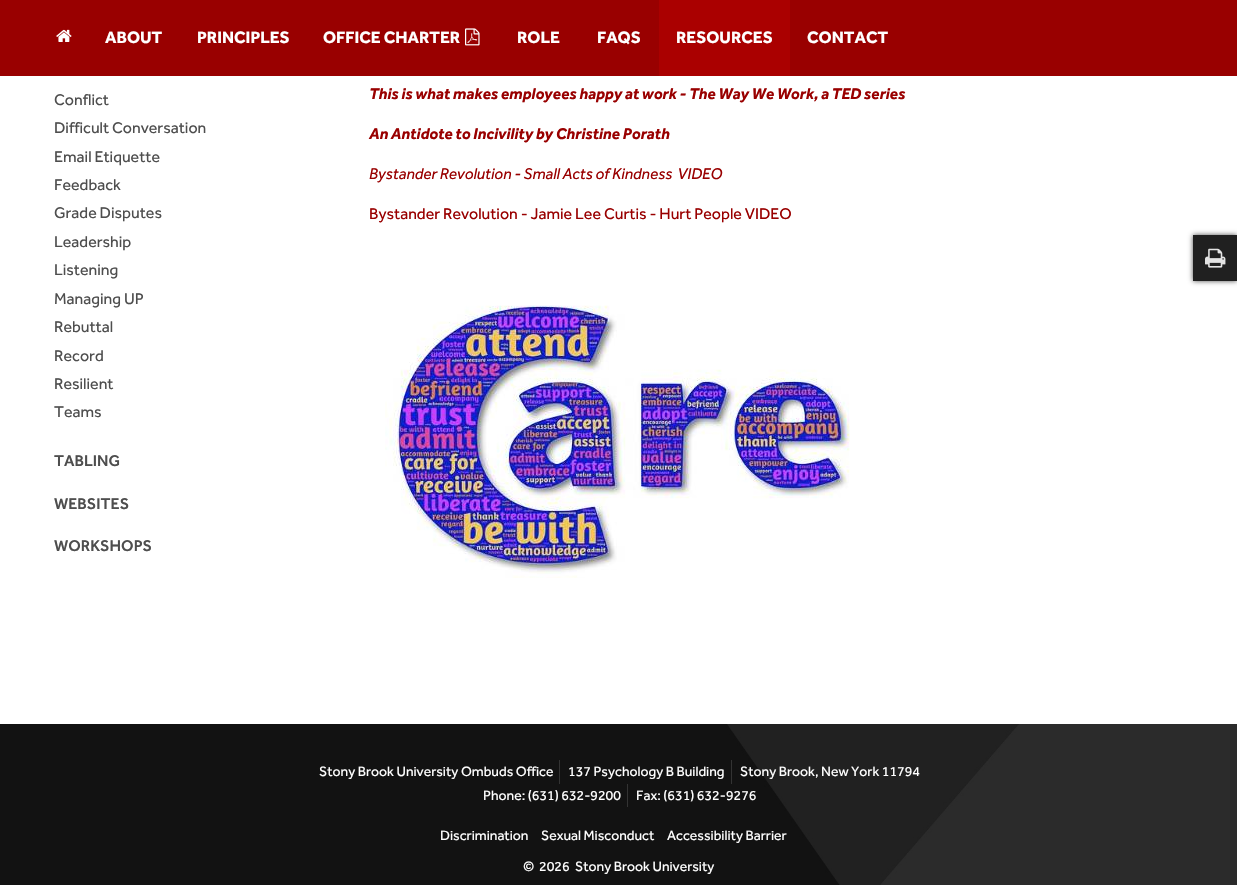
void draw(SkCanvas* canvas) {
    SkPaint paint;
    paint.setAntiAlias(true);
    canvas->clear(0xFFFFFFFF);
    paint.setColor(0xFF990000);
    canvas->drawRect(SkRect::MakeXYWH(0, 0, 1237, 76), paint);
    canvas->drawImageRect(SkImages::DeferredFromEncodedData(SkData::MakeFromFileName("img1.png")), SkRect::MakeXYWH(56, 29, 16, 13), SkSamplingOptions());
    SkFont font1(fontMgr->matchFamilyStyle("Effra", SkFontStyle::Bold()), 17);
    font1.setSubpixel(true);
    paint.setColor(0xFFFFFFFF);
    canvas->drawString("ABOUT", 105, 43, font1, paint);
    canvas->drawString("PRINCIPLES", 197, 43, font1, paint);
    canvas->drawString("OFFICE CHARTER", 323, 43, font1, paint);
    canvas->drawImageRect(SkImages::DeferredFromEncodedData(SkData::MakeFromFileName("img2.png")), SkRect::MakeXYWH(465, 28, 15, 18), SkSamplingOptions());
    canvas->drawString("ROLE", 517, 43, font1, paint);
    canvas->drawString("FAQS", 597, 43, font1, paint);
    paint.setColor(0xFFAA0000);
    canvas->drawRect(SkRect::MakeXYWH(659, 0, 131, 76), paint);
    paint.setColor(0xFFFFFFFF);
    canvas->drawString("RESOURCES", 676, 43, font1, paint);
    canvas->drawString("CONTACT", 807, 43, font1, paint);
    SkFont font2(fontMgr->matchFamilyStyle("Effra", SkFontStyle::Normal()), 16);
    font2.setSubpixel(true);
    paint.setColor(0xFF4E4E4E);
    canvas->drawString("Conflict", 54, 105, font2, paint);
    canvas->drawString("Difficult Conversation", 54, 133, font2, paint);
    canvas->drawString("Email Etiquette", 54, 162, font2, paint);
    canvas->drawString("Feedback", 54, 190, font2, paint);
    canvas->drawString("Grade Disputes", 54, 218, font2, paint);
    canvas->drawString("Leadership", 54, 247, font2, paint);
    canvas->drawString("Listening", 54, 275, font2, paint);
    canvas->drawString("Managing UP", 54, 304, font2, paint);
    canvas->drawString("Rebuttal", 54, 332, font2, paint);
    canvas->drawString("Record", 54, 361, font2, paint);
    canvas->drawString("Resilient", 54, 389, font2, paint);
    canvas->drawString("Teams", 54, 417, font2, paint);
    SkFont font3(fontMgr->matchFamilyStyle("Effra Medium", SkFontStyle(500, SkFontStyle::kNormal_Width, SkFontStyle::kUpright_Slant)), 16);
    font3.setSubpixel(true);
    canvas->drawString("TABLING", 54, 466, font3, paint);
    canvas->drawString("WEBSITES", 54, 509, font3, paint);
    canvas->drawString("WORKSHOPS", 54, 551, font3, paint);
    SkFont font4(fontMgr->matchFamilyStyle("Effra", SkFontStyle::BoldItalic()), 16);
    font4.setSubpixel(true);
    paint.setColor(0xFF990000);
    canvas->drawString("This is what makes employees happy at work - The Way We Work, a TED series", 369, 99, font4, paint);
    canvas->drawString("An Antidote to Incivility by Christine Porath", 369, 139, font4, paint);
    SkFont font5(fontMgr->matchFamilyStyle("Effra", SkFontStyle::Italic()), 16);
    font5.setSubpixel(true);
    canvas->drawString("Bystander Revolution - Small Acts of Kindness  VIDEO", 369, 179, font5, paint);
    canvas->drawString("Bystander Revolution - Jamie Lee Curtis - Hurt People VIDEO", 369, 219, font2, paint);
    canvas->drawImageRect(SkImages::DeferredFromEncodedData(SkData::MakeFromFileName("img3.png")), SkRect::MakeXYWH(385, 305, 465, 273), SkSamplingOptions());
    paint.setColor(0xFF4D4D4D);
    paint.setMaskFilter(SkMaskFilter::MakeBlur(kNormal_SkBlurStyle, 2.5f));
    canvas->drawRect(SkRect::MakeXYWH(1193, 235, 44, 46), paint);
    paint.setMaskFilter(nullptr);
    paint.setColor(0xFF202020);
    canvas->drawRect(SkRect::MakeXYWH(1193, 235, 44, 46), paint);
    canvas->drawImageRect(SkImages::DeferredFromEncodedData(SkData::MakeFromFileName("img4.png")), SkRect::MakeXYWH(1205, 248, 21, 20), SkSamplingOptions());
    canvas->drawImageRect(SkImages::DeferredFromEncodedData(SkData::MakeFromFileName("img5.png")), SkRect::MakeXYWH(0, 724, 1237, 161), SkSamplingOptions());
    SkFont font6(fontMgr->matchFamilyStyle("Effra", SkFontStyle::Normal()), 14);
    font6.setSubpixel(true);
    paint.setColor(0xFFFFFFFF);
    canvas->drawString("Stony Brook University Ombuds Office", 319, 776, font6, paint);
    paint.setColor(0xFF333333);
    canvas->drawRect(SkRect::MakeXYWH(559, 760, 1, 24), paint);
    paint.setColor(0xFFFFFFFF);
    canvas->drawString("137 Psychology B Building", 568, 776, font6, paint);
    paint.setColor(0xFF333333);
    canvas->drawRect(SkRect::MakeXYWH(731, 760, 1, 24), paint);
    paint.setColor(0xFFFFFFFF);
    canvas->drawString("Stony Brook, New York 11794", 740, 776, font6, paint);
    canvas->drawString("Phone: (631) 632-9200", 483, 800, font6, paint);
    paint.setColor(0xFF333333);
    canvas->drawRect(SkRect::MakeXYWH(627, 784, 1, 23), paint);
    paint.setColor(0xFFFFFFFF);
    canvas->drawString("Fax: (631) 632-9276", 636, 800, font6, paint);
    canvas->drawString("Discrimination", 440, 840, font6, paint);
    canvas->drawString("Sexual Misconduct", 541, 840, font6, paint);
    canvas->drawString("Accessibility Barrier", 667, 840, font6, paint);
    canvas->drawString("©", 523, 871, font6, paint);
    canvas->drawString("2026", 539, 871, font6, paint);
    canvas->drawString("Stony Brook University", 575, 871, font6, paint);
}
